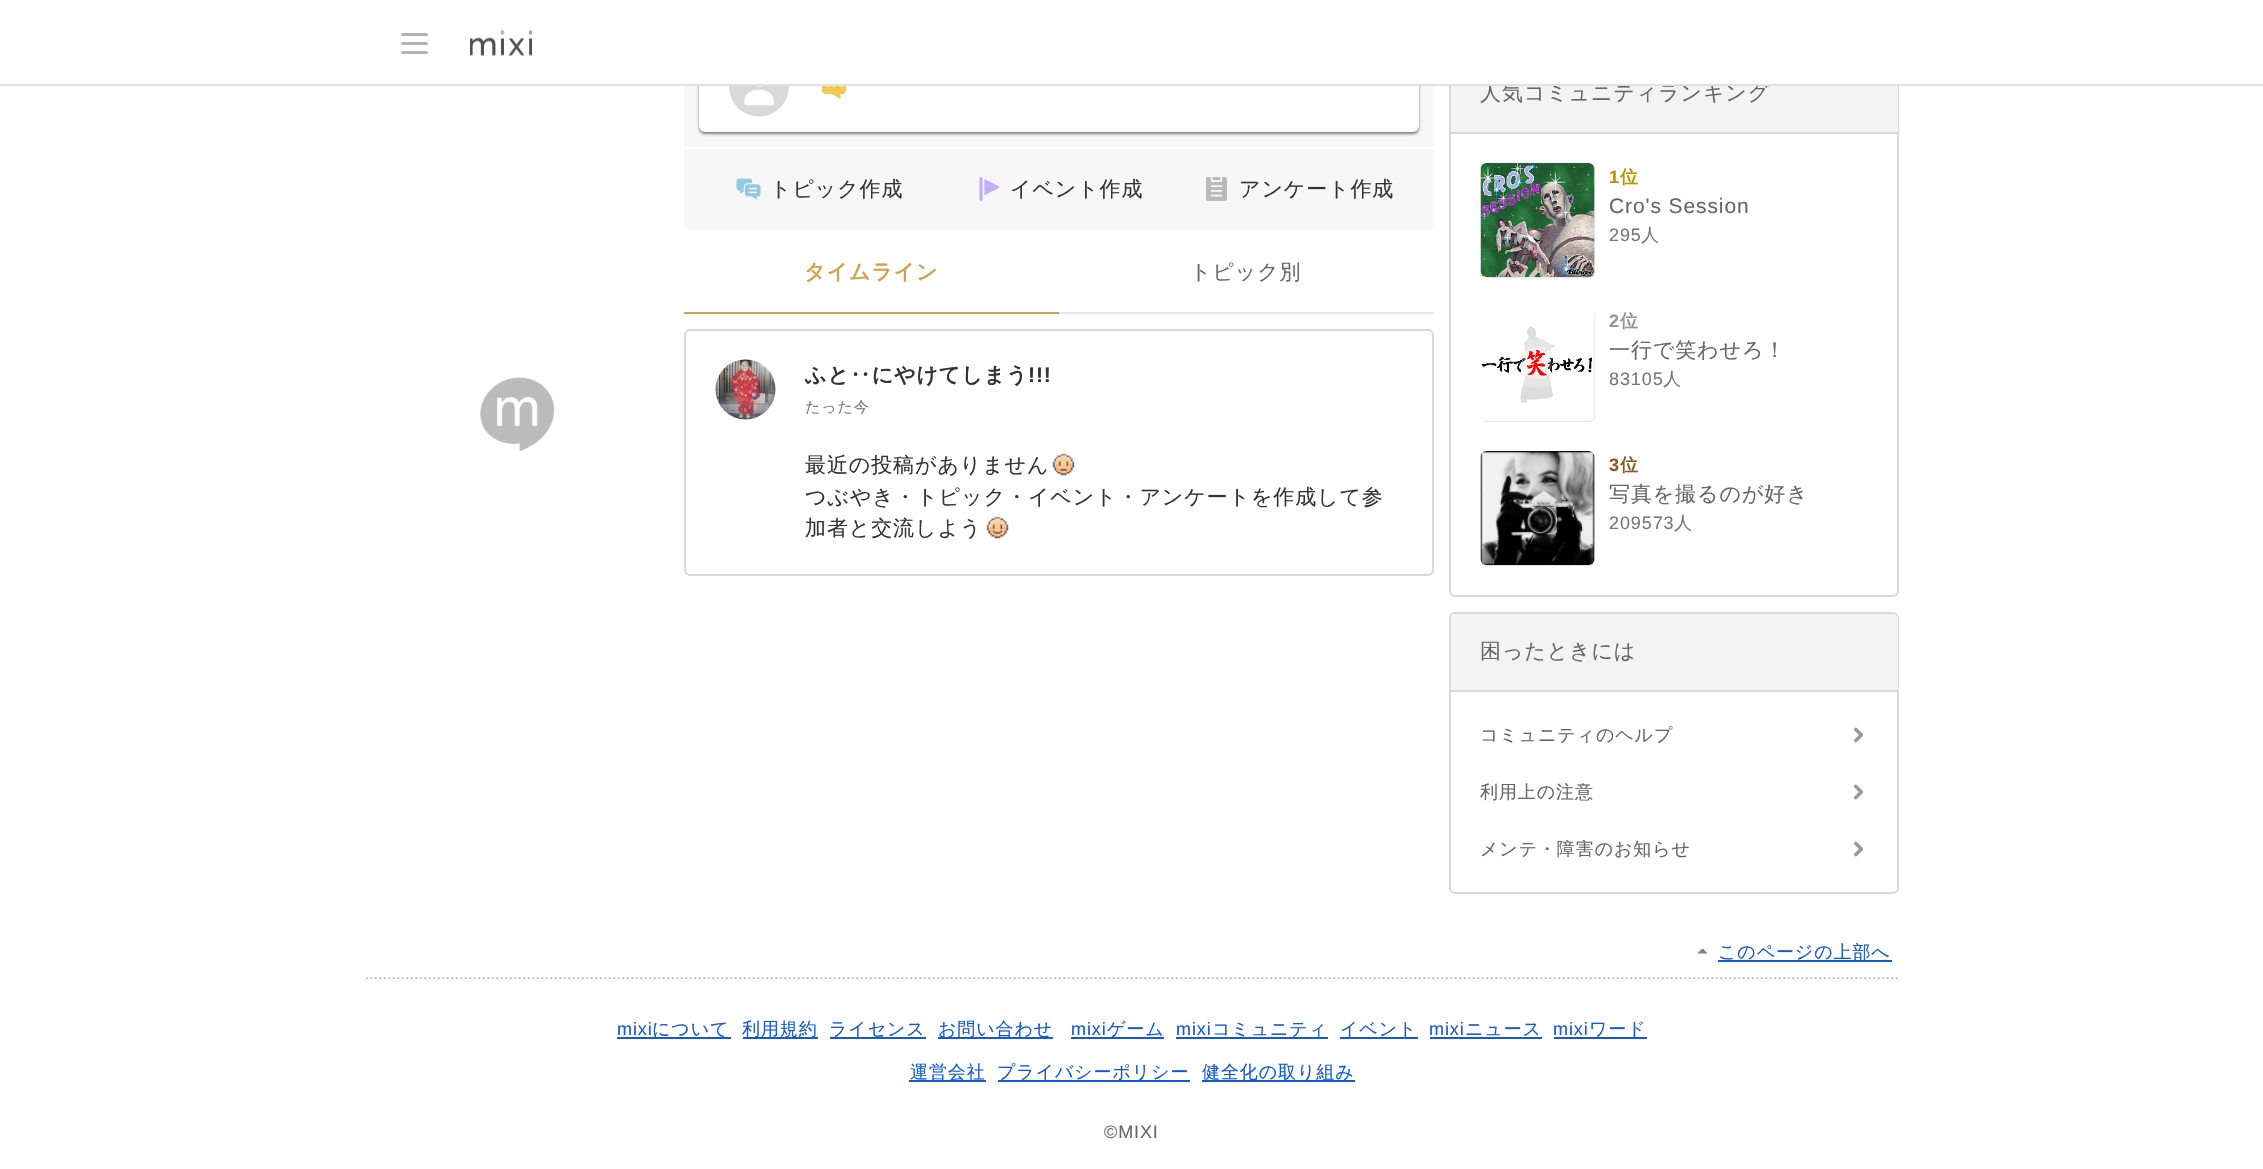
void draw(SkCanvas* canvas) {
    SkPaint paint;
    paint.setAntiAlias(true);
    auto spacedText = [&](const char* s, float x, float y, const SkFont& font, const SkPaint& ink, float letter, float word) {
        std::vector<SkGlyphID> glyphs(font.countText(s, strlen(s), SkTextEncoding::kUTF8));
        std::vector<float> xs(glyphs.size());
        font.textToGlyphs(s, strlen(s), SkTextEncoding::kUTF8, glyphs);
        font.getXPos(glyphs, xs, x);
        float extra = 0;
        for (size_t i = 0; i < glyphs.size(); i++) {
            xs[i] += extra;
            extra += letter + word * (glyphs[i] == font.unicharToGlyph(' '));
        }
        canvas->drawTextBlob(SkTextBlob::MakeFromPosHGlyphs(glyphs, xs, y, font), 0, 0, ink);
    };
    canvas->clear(0xFFFFFFFF);
    paint.setColor(0xFFF7F7F7);
    canvas->drawRect(SkRect::MakeXYWH(684, 86, 750, 61), paint);
    paint.setColor(0x80000000);
    paint.setMaskFilter(SkMaskFilter::MakeBlur(kNormal_SkBlurStyle, 1.5f));
    canvas->drawRoundRect(SkRect::MakeXYWH(699, 44, 720, 90), 6, 6, paint);
    paint.setMaskFilter(nullptr);
    paint.setColor(0xFFFFFFFF);
    canvas->drawRoundRect(SkRect::MakeXYWH(699, 42, 720, 90), 6, 6, paint);
    paint.setStyle(SkPaint::kStroke_Style);
    paint.setStrokeWidth(2);
    paint.setColor(0xFFD9D9D9);
    canvas->drawRoundRect(SkRect::MakeXYWH(1450, 55, 448, 541), 5, 5, paint);
    paint.setStyle(SkPaint::kFill_Style);
    paint.setColor(0xFFF3F3F3);
    canvas->drawRect(SkRect::MakeXYWH(1451, 86, 447, 46), paint);
    SkFont font1(fontMgr->matchFamilyStyle("WenQuanYi Zen Hei", SkFontStyle(500, SkFontStyle::kNormal_Width, SkFontStyle::kUpright_Slant)), 21);
    font1.setSubpixel(true);
    paint.setColor(0xFF666666);
    spacedText("人気コミュニティランキング", 1480, 100, font1, paint, 0.9f, 0);
    paint.setColor(0xFFFFFFFF);
    canvas->drawRect(SkRect::MakeXYWH(696, 41, 1203, 43), paint);
    paint.setColor(0xFFE1E1E1);
    canvas->drawRect(SkRect::MakeXYWH(0, 84, 2263, 2), paint);
    paint.setColor(0xFFB2B2B2);
    canvas->drawRoundRect(SkRect::MakeXYWH(401, 33, 27, 3), 1.5f, 1.5f, paint);
    canvas->drawRoundRect(SkRect::MakeXYWH(401, 42, 27, 3), 1.5f, 1.5f, paint);
    canvas->drawRoundRect(SkRect::MakeXYWH(401, 51, 27, 3), 1.5f, 1.5f, paint);
    canvas->drawImageRect(SkImages::DeferredFromEncodedData(SkData::MakeFromFileName("img1.png")), SkRect::MakeXYWH(470, 29, 63, 27), SkSamplingOptions());
    canvas->drawImageRect(SkImages::DeferredFromEncodedData(SkData::MakeFromFileName("img2.png")), SkRect::MakeXYWH(480, 377, 75, 75), SkSamplingOptions());
    canvas->drawImageRect(SkImages::DeferredFromEncodedData(SkData::MakeFromFileName("img3.png")), SkRect::MakeXYWH(729, 86, 60, 31), SkSamplingOptions());
    canvas->drawImageRect(SkImages::DeferredFromEncodedData(SkData::MakeFromFileName("img4.png")), SkRect::MakeXYWH(822, 86, 24, 13), SkSamplingOptions());
    paint.setColor(0xFFF7F7F7);
    canvas->drawPath(SkPathBuilder().moveTo(684, 149).lineTo(1434, 149).lineTo(1434, 224).cubicTo(1434, 227.5f, 1431.5f, 230, 1428, 230).lineTo(690, 230).cubicTo(686.5f, 230, 684, 227.5f, 684, 224).close().detach(), paint);
    canvas->drawImageRect(SkImages::DeferredFromEncodedData(SkData::MakeFromFileName("img5.png")), SkRect::MakeXYWH(736, 178, 25, 22), SkSamplingOptions());
    paint.setColor(0xFF333333);
    spacedText("トピック作成", 770, 196, font1, paint, 0.9f, 0);
    canvas->drawImageRect(SkImages::DeferredFromEncodedData(SkData::MakeFromFileName("img6.png")), SkRect::MakeXYWH(979, 177, 20, 24), SkSamplingOptions());
    spacedText("イベント作成", 1010, 196, font1, paint, 0.9f, 0);
    canvas->drawImageRect(SkImages::DeferredFromEncodedData(SkData::MakeFromFileName("img7.png")), SkRect::MakeXYWH(1206, 177, 21, 24), SkSamplingOptions());
    spacedText("アンケート作成", 1239, 196, font1, paint, 0.9f, 0);
    paint.setColor(0xFFE8E8E8);
    canvas->drawRect(SkRect::MakeXYWH(1059, 312, 375, 2), paint);
    paint.setColor(0xFFCFA34C);
    canvas->drawRect(SkRect::MakeXYWH(684, 312, 375, 2), paint);
    SkFont font2(fontMgr->matchFamilyStyle("WenQuanYi Zen Hei", SkFontStyle::Bold()), 21);
    font2.setSubpixel(true);
    spacedText("タイムライン", 804, 279, font2, paint, 0.9f, 0);
    paint.setColor(0xFF666666);
    spacedText("トピック別", 1190, 279, font1, paint, 0.9f, 0);
    paint.setStyle(SkPaint::kStroke_Style);
    paint.setColor(0xFFD9D9D9);
    canvas->drawRoundRect(SkRect::MakeXYWH(685, 330, 748, 245), 5, 5, paint);
    canvas->drawImageRect(SkImages::DeferredFromEncodedData(SkData::MakeFromFileName("img8.png")), SkRect::MakeXYWH(715, 359, 61, 61), SkSamplingOptions());
    paint.setStyle(SkPaint::kFill_Style);
    paint.setColor(0xFF333333);
    spacedText("ふと‥にやけてしまう", 805, 382, font2, paint, 0.9f, 0);
    SkFont font3(fontMgr->matchFamilyStyle("Liberation Sans", SkFontStyle::Bold()), 21);
    font3.setSubpixel(true);
    spacedText("!!!", 1028, 382, font3, paint, 0.9f, 0);
    SkFont font4(fontMgr->matchFamilyStyle("WenQuanYi Zen Hei", SkFontStyle(500, SkFontStyle::kNormal_Width, SkFontStyle::kUpright_Slant)), 15);
    font4.setSubpixel(true);
    paint.setColor(0xFF767676);
    spacedText("たった今", 805, 412, font4, paint, 0.9f, 0);
    paint.setColor(0xFF333333);
    spacedText("最近の投稿がありません", 805, 472, font1, paint, 0.9f, 0);
    canvas->drawImageRect(SkImages::DeferredFromEncodedData(SkData::MakeFromFileName("img9.png")), SkRect::MakeXYWH(1052, 453, 23, 23), SkSamplingOptions());
    spacedText("つぶやき・トピック・イベント・アンケートを作成して参", 805, 504, font1, paint, 0.9f, 0);
    spacedText("加者と交流しよう", 805, 535, font1, paint, 0.9f, 0);
    canvas->drawImageRect(SkImages::DeferredFromEncodedData(SkData::MakeFromFileName("img10.png")), SkRect::MakeXYWH(986, 516, 23, 23), SkSamplingOptions());
    paint.setColor(0xFFD9D9D9);
    canvas->drawRect(SkRect::MakeXYWH(1451, 132, 447, 2), paint);
    paint.setColor(0xFFE5E5E5);
    canvas->drawRoundRect(SkRect::MakeXYWH(1481, 164, 114, 114), 6, 6, paint);
    canvas->drawImageRect(SkImages::DeferredFromEncodedData(SkData::MakeFromFileName("img11.png")), SkRect::MakeXYWH(1480, 163, 115, 114), SkSamplingOptions());
    SkFont font5(fontMgr->matchFamilyStyle("Liberation Sans", SkFontStyle::Bold()), 18);
    font5.setSubpixel(true);
    paint.setColor(0xFFB99400);
    spacedText("1", 1609, 183, font5, paint, 0.9f, 0);
    SkFont font6(fontMgr->matchFamilyStyle("WenQuanYi Zen Hei", SkFontStyle::Bold()), 18);
    font6.setSubpixel(true);
    spacedText("位", 1620, 183, font6, paint, 0.9f, 0);
    SkFont font7(fontMgr->matchFamilyStyle("Liberation Sans", SkFontStyle::Normal()), 21);
    font7.setSubpixel(true);
    paint.setColor(0xFF666666);
    spacedText("Cro's Session", 1609, 213, font7, paint, 0.9f, 0);
    SkFont font8(fontMgr->matchFamilyStyle("Liberation Sans", SkFontStyle::Normal()), 18);
    font8.setSubpixel(true);
    paint.setColor(0xFF767676);
    spacedText("295", 1609, 241, font8, paint, 0.9f, 0);
    SkFont font9(fontMgr->matchFamilyStyle("WenQuanYi Zen Hei", SkFontStyle(500, SkFontStyle::kNormal_Width, SkFontStyle::kUpright_Slant)), 18);
    font9.setSubpixel(true);
    spacedText("人", 1641, 241, font9, paint, 0.9f, 0);
    paint.setColor(0xFFE5E5E5);
    canvas->drawRoundRect(SkRect::MakeXYWH(1481, 308, 114, 114), 6, 6, paint);
    canvas->drawImageRect(SkImages::DeferredFromEncodedData(SkData::MakeFromFileName("img12.png")), SkRect::MakeXYWH(1481, 308, 114, 113), SkSamplingOptions());
    paint.setColor(0xFF929599);
    spacedText("2", 1609, 327, font5, paint, 0.9f, 0);
    spacedText("位", 1620, 327, font6, paint, 0.9f, 0);
    paint.setColor(0xFF666666);
    spacedText("一行で笑わせろ！", 1609, 357, font1, paint, 0.9f, 0);
    paint.setColor(0xFF767676);
    spacedText("83105", 1609, 385, font8, paint, 0.9f, 0);
    spacedText("人", 1663, 385, font9, paint, 0.9f, 0);
    paint.setColor(0xFFE5E5E5);
    canvas->drawRoundRect(SkRect::MakeXYWH(1481, 452, 114, 114), 6, 6, paint);
    canvas->drawImageRect(SkImages::DeferredFromEncodedData(SkData::MakeFromFileName("img13.png")), SkRect::MakeXYWH(1480, 451, 115, 114), SkSamplingOptions());
    paint.setColor(0xFF8A5922);
    spacedText("3", 1609, 471, font5, paint, 0.9f, 0);
    spacedText("位", 1620, 471, font6, paint, 0.9f, 0);
    paint.setColor(0xFF666666);
    spacedText("写真を撮るのが好き", 1609, 501, font1, paint, 0.9f, 0);
    paint.setColor(0xFF767676);
    spacedText("209573", 1609, 529, font8, paint, 0.9f, 0);
    spacedText("人", 1674, 529, font9, paint, 0.9f, 0);
    paint.setStyle(SkPaint::kStroke_Style);
    paint.setColor(0xFFD9D9D9);
    canvas->drawRoundRect(SkRect::MakeXYWH(1450, 613, 448, 280), 5, 5, paint);
    paint.setStyle(SkPaint::kFill_Style);
    paint.setColor(0xFFF3F3F3);
    canvas->drawPath(SkPathBuilder().moveTo(1457, 614).lineTo(1892, 614).cubicTo(1895.5f, 614, 1898, 616.5f, 1898, 620).lineTo(1898, 692).lineTo(1451, 692).lineTo(1451, 620).cubicTo(1451, 616.5f, 1453.5f, 614, 1457, 614).close().detach(), paint);
    paint.setColor(0xFFD9D9D9);
    canvas->drawRect(SkRect::MakeXYWH(1451, 690, 447, 2), paint);
    paint.setColor(0xFF666666);
    spacedText("困ったときには", 1480, 658, font1, paint, 0.9f, 0);
    canvas->drawImageRect(SkImages::DeferredFromEncodedData(SkData::MakeFromFileName("img14.png")), SkRect::MakeXYWH(1854, 727, 9, 16), SkSamplingOptions());
    spacedText("コミュニティのヘルプ", 1480, 741, font9, paint, 0.9f, 0);
    canvas->drawImageRect(SkImages::DeferredFromEncodedData(SkData::MakeFromFileName("img14.png")), SkRect::MakeXYWH(1854, 784, 9, 16), SkSamplingOptions());
    spacedText("利用上の注意", 1480, 798, font9, paint, 0.9f, 0);
    canvas->drawImageRect(SkImages::DeferredFromEncodedData(SkData::MakeFromFileName("img14.png")), SkRect::MakeXYWH(1854, 841, 9, 16), SkSamplingOptions());
    spacedText("メンテ・障害のお知らせ", 1480, 855, font9, paint, 0.9f, 0);
    canvas->drawImageRect(SkImages::DeferredFromEncodedData(SkData::MakeFromFileName("img15.png")), SkRect::MakeXYWH(1698, 949, 9, 5), SkSamplingOptions());
    paint.setColor(0xFF1558D6);
    canvas->drawRect(SkRect::MakeXYWH(1718, 960, 174, 2), paint);
    spacedText("このページの上部へ", 1718, 958, font9, paint, 0.9f, 0);
    canvas->drawImageRect(SkImages::DeferredFromEncodedData(SkData::MakeFromFileName("img16.png")), SkRect::MakeXYWH(366, 977, 1532, 2), SkSamplingOptions());
    spacedText("mixi", 617, 1035, font8, paint, 0.9f, 0);
    canvas->drawRect(SkRect::MakeXYWH(617, 1037, 114, 2), paint);
    spacedText("について", 652, 1035, font9, paint, 0.9f, 0);
    canvas->drawRect(SkRect::MakeXYWH(743, 1037, 75, 2), paint);
    spacedText("利用規約", 742, 1035, font9, paint, 0.9f, 0);
    canvas->drawRect(SkRect::MakeXYWH(830, 1037, 96, 2), paint);
    spacedText("ライセンス", 829, 1035, font9, paint, 0.9f, 0);
    canvas->drawRect(SkRect::MakeXYWH(938, 1037, 115, 2), paint);
    spacedText("お問い合わせ", 938, 1035, font9, paint, 0.9f, 0);
    spacedText("mixi", 1071, 1035, font8, paint, 0.9f, 0);
    canvas->drawRect(SkRect::MakeXYWH(1071, 1037, 93, 2), paint);
    spacedText("ゲーム", 1107, 1035, font9, paint, 0.9f, 0);
    spacedText("mixi", 1176, 1035, font8, paint, 0.9f, 0);
    spacedText("コミュニティ", 1212, 1035, font9, paint, 0.9f, 0);
    canvas->drawRect(SkRect::MakeXYWH(1176, 1037, 152, 2), paint);
    canvas->drawRect(SkRect::MakeXYWH(1340, 1037, 78, 2), paint);
    spacedText("イベント", 1340, 1035, font9, paint, 0.9f, 0);
    spacedText("mixi", 1429, 1035, font8, paint, 0.9f, 0);
    spacedText("ニュース", 1465, 1035, font9, paint, 0.9f, 0);
    canvas->drawRect(SkRect::MakeXYWH(1430, 1037, 112, 2), paint);
    spacedText("mixi", 1553, 1035, font8, paint, 0.9f, 0);
    canvas->drawRect(SkRect::MakeXYWH(1554, 1037, 93, 2), paint);
    spacedText("ワード", 1589, 1035, font9, paint, 0.9f, 0);
    canvas->drawRect(SkRect::MakeXYWH(909, 1080, 77, 2), paint);
    spacedText("運営会社", 910, 1078, font9, paint, 0.9f, 0);
    canvas->drawRect(SkRect::MakeXYWH(998, 1080, 192, 2), paint);
    spacedText("プライバシーポリシー", 997, 1078, font9, paint, 0.9f, 0);
    canvas->drawRect(SkRect::MakeXYWH(1202, 1080, 153, 2), paint);
    spacedText("健全化の取り組み", 1202, 1078, font9, paint, 0.9f, 0);
    paint.setColor(0xFF666666);
    spacedText("©MIXI", 1104, 1138, font8, paint, 0.9f, 0);
}
